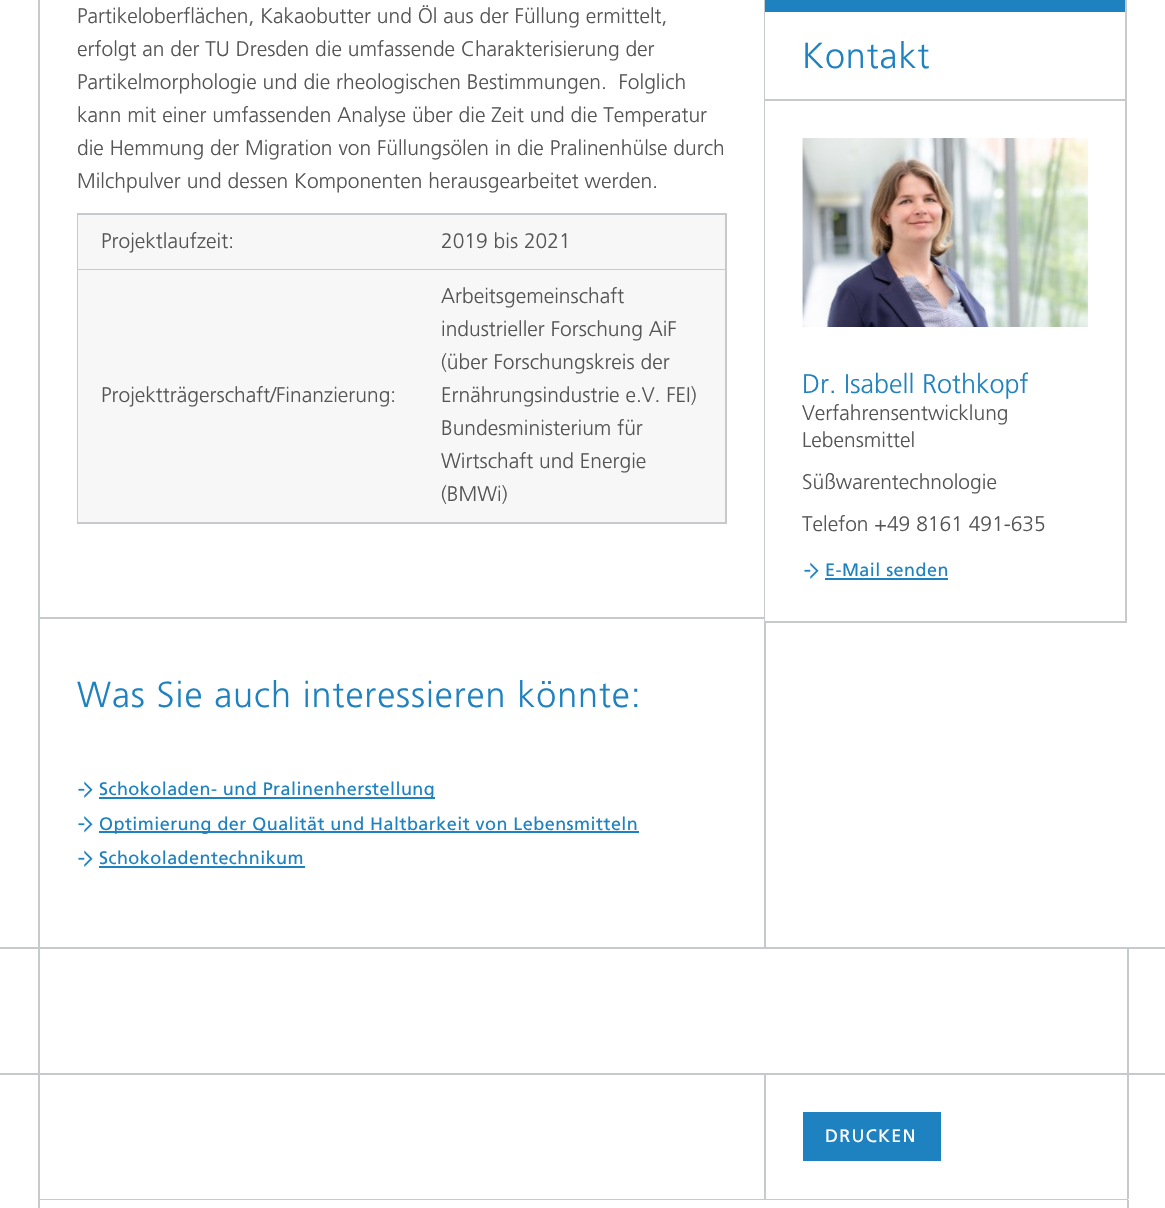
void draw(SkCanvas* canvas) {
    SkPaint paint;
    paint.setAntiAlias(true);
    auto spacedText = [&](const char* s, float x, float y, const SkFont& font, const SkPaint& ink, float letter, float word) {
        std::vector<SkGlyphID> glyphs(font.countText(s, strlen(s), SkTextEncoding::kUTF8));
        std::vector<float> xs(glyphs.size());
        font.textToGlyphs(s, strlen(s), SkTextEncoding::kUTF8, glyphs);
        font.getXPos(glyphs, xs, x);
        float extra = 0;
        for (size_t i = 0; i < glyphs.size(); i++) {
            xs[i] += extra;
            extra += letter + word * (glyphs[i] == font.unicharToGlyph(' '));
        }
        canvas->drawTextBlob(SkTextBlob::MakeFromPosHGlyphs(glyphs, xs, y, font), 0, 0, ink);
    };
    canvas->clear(0xFFFFFFFF);
    paint.setColor(0xFFC7CACC);
    canvas->drawRect(SkRect::MakeXYWH(38, 0, 2, 1199), paint);
    canvas->drawRect(SkRect::MakeXYWH(764, 0, 1, 617), paint);
    SkFont font1(fontMgr->matchFamilyStyle("Frutiger", SkFontStyle(300, SkFontStyle::kNormal_Width, SkFontStyle::kUpright_Slant)), 21);
    font1.setSubpixel(true);
    paint.setColor(0xFF555555);
    canvas->drawString("Partikeloberflächen, Kakaobutter und Öl aus der Füllung ermittelt,", 77, 23, font1, paint);
    canvas->drawString("erfolgt an der TU Dresden die umfassende Charakterisierung der", 77, 56, font1, paint);
    canvas->drawString("Partikelmorphologie und die rheologischen Bestimmungen.  Folglich", 77, 89, font1, paint);
    canvas->drawString("kann mit einer umfassenden Analyse über die Zeit und die Temperatur", 77, 122, font1, paint);
    canvas->drawString("die Hemmung der Migration von Füllungsölen in die Pralinenhülse durch", 77, 155, font1, paint);
    canvas->drawString("Milchpulver und dessen Komponenten herausgearbeitet werden.", 77, 188, font1, paint);
    paint.setColor(0xFFC7CACC);
    canvas->drawRect(SkRect::MakeXYWH(77, 213, 650, 311), paint);
    paint.setColor(0xFFF7F7F7);
    canvas->drawRect(SkRect::MakeXYWH(78, 215, 647, 54), paint);
    paint.setColor(0xFF555555);
    canvas->drawString("Projektlaufzeit:", 101, 248, font1, paint);
    canvas->drawString("2019 bis 2021", 441, 248, font1, paint);
    paint.setColor(0xFFF7F7F7);
    canvas->drawRect(SkRect::MakeXYWH(78, 270, 647, 252), paint);
    paint.setColor(0xFF555555);
    canvas->drawString("Projektträgerschaft/Finanzierung:", 101, 402, font1, paint);
    canvas->drawString("Arbeitsgemeinschaft", 441, 303, font1, paint);
    canvas->drawString("industrieller Forschung AiF", 441, 336, font1, paint);
    canvas->drawString("(über Forschungskreis der", 441, 369, font1, paint);
    canvas->drawString("Ernährungsindustrie e.V. FEI)", 441, 402, font1, paint);
    canvas->drawString("Bundesministerium für", 441, 435, font1, paint);
    canvas->drawString("Wirtschaft und Energie", 441, 468, font1, paint);
    canvas->drawString("(BMWi)", 441, 501, font1, paint);
    paint.setColor(0xFFC7CACC);
    canvas->drawRect(SkRect::MakeXYWH(38, 617, 727, 2), paint);
    canvas->drawRect(SkRect::MakeXYWH(764, 617, 2, 330), paint);
    SkFont font2(fontMgr->matchFamilyStyle("Frutiger", SkFontStyle(300, SkFontStyle::kNormal_Width, SkFontStyle::kUpright_Slant)), 36);
    font2.setSubpixel(true);
    paint.setColor(0xFF1F82C0);
    spacedText("Was Sie auch interessieren könnte:", 77, 707, font2, paint, 0.9f, 0);
    canvas->drawImageRect(SkImages::DeferredFromEncodedData(SkData::MakeFromFileName("img1.png")), SkRect::MakeXYWH(78, 781, 15, 17), SkSamplingOptions());
    canvas->drawRect(SkRect::MakeXYWH(99, 797, 336, 2), paint);
    SkFont font3(fontMgr->matchFamilyStyle("Frutiger", SkFontStyle::Normal()), 18);
    font3.setSubpixel(true);
    spacedText("Schokoladen- und Pralinenherstellung", 99, 795, font3, paint, 0.45f, 0);
    canvas->drawImageRect(SkImages::DeferredFromEncodedData(SkData::MakeFromFileName("img2.png")), SkRect::MakeXYWH(78, 816, 15, 17), SkSamplingOptions());
    canvas->drawRect(SkRect::MakeXYWH(99, 831, 540, 2), paint);
    spacedText("Optimierung der Qualität und Haltbarkeit von Lebensmitteln", 99, 830, font3, paint, 0.45f, 0);
    canvas->drawImageRect(SkImages::DeferredFromEncodedData(SkData::MakeFromFileName("img1.png")), SkRect::MakeXYWH(78, 850, 15, 17), SkSamplingOptions());
    spacedText("Schokoladentechnikum", 99, 864, font3, paint, 0.45f, 0);
    canvas->drawRect(SkRect::MakeXYWH(99, 866, 206, 2), paint);
    paint.setColor(0xFFFFFFFF);
    canvas->drawRect(SkRect::MakeXYWH(765, 617, 1, 4), paint);
    paint.setColor(0xFFC7CACC);
    canvas->drawRect(SkRect::MakeXYWH(1125, 0, 2, 623), paint);
    canvas->drawRect(SkRect::MakeXYWH(765, 621, 362, 2), paint);
    paint.setColor(0xFF1F82C0);
    canvas->drawRect(SkRect::MakeXYWH(765, 0, 360, 12), paint);
    paint.setColor(0xFFC7CACC);
    canvas->drawRect(SkRect::MakeXYWH(765, 99, 360, 2), paint);
    paint.setColor(0xFF1F82C0);
    spacedText("Kontakt", 802, 68, font2, paint, 0.9f, 0);
    canvas->drawImageRect(SkImages::DeferredFromEncodedData(SkData::MakeFromFileName("img3.png")), SkRect::MakeXYWH(802, 138, 286, 189), SkSamplingOptions());
    SkFont font4(fontMgr->matchFamilyStyle("Frutiger", SkFontStyle(300, SkFontStyle::kNormal_Width, SkFontStyle::kUpright_Slant)), 27);
    font4.setSubpixel(true);
    canvas->drawString("Dr. Isabell Rothkopf", 802, 393, font4, paint);
    paint.setColor(0xFF555555);
    canvas->drawString("Verfahrensentwicklung", 802, 420, font1, paint);
    canvas->drawString("Lebensmittel", 802, 447, font1, paint);
    canvas->drawString("Süßwarentechnologie", 802, 489, font1, paint);
    canvas->drawString("Telefon +49 8161 491-635", 802, 531, font1, paint);
    canvas->drawImageRect(SkImages::DeferredFromEncodedData(SkData::MakeFromFileName("img1.png")), SkRect::MakeXYWH(804, 562, 15, 17), SkSamplingOptions());
    paint.setColor(0xFF1F82C0);
    spacedText("E-Mail senden", 825, 576, font3, paint, 0.45f, 0);
    canvas->drawRect(SkRect::MakeXYWH(825, 578, 123, 2), paint);
    paint.setColor(0xFFC7CACC);
    canvas->drawRect(SkRect::MakeXYWH(0, 947, 39, 2), paint);
    canvas->drawRect(SkRect::MakeXYWH(0, 1073, 39, 2), paint);
    canvas->drawRect(SkRect::MakeXYWH(38, 947, 1127, 2), paint);
    canvas->drawRect(SkRect::MakeXYWH(38, 1073, 1127, 2), paint);
    canvas->drawRect(SkRect::MakeXYWH(1127, 947, 2, 252), paint);
    canvas->drawRect(SkRect::MakeXYWH(764, 1074, 2, 125), paint);
    paint.setColor(0xFF1F82C0);
    canvas->drawRect(SkRect::MakeXYWH(803, 1112, 138, 49), paint);
    paint.setColor(0xFFFFFFFF);
    spacedText("DRUCKEN", 825, 1142, font3, paint, 1.25f, 0);
    paint.setColor(0xFFC7CACC);
    canvas->drawRect(SkRect::MakeXYWH(38, 1199, 1090, 1), paint);
    canvas->drawRect(SkRect::MakeXYWH(1127, 1200, 2, 8), paint);
    canvas->drawRect(SkRect::MakeXYWH(38, 1200, 2, 8), paint);
}
